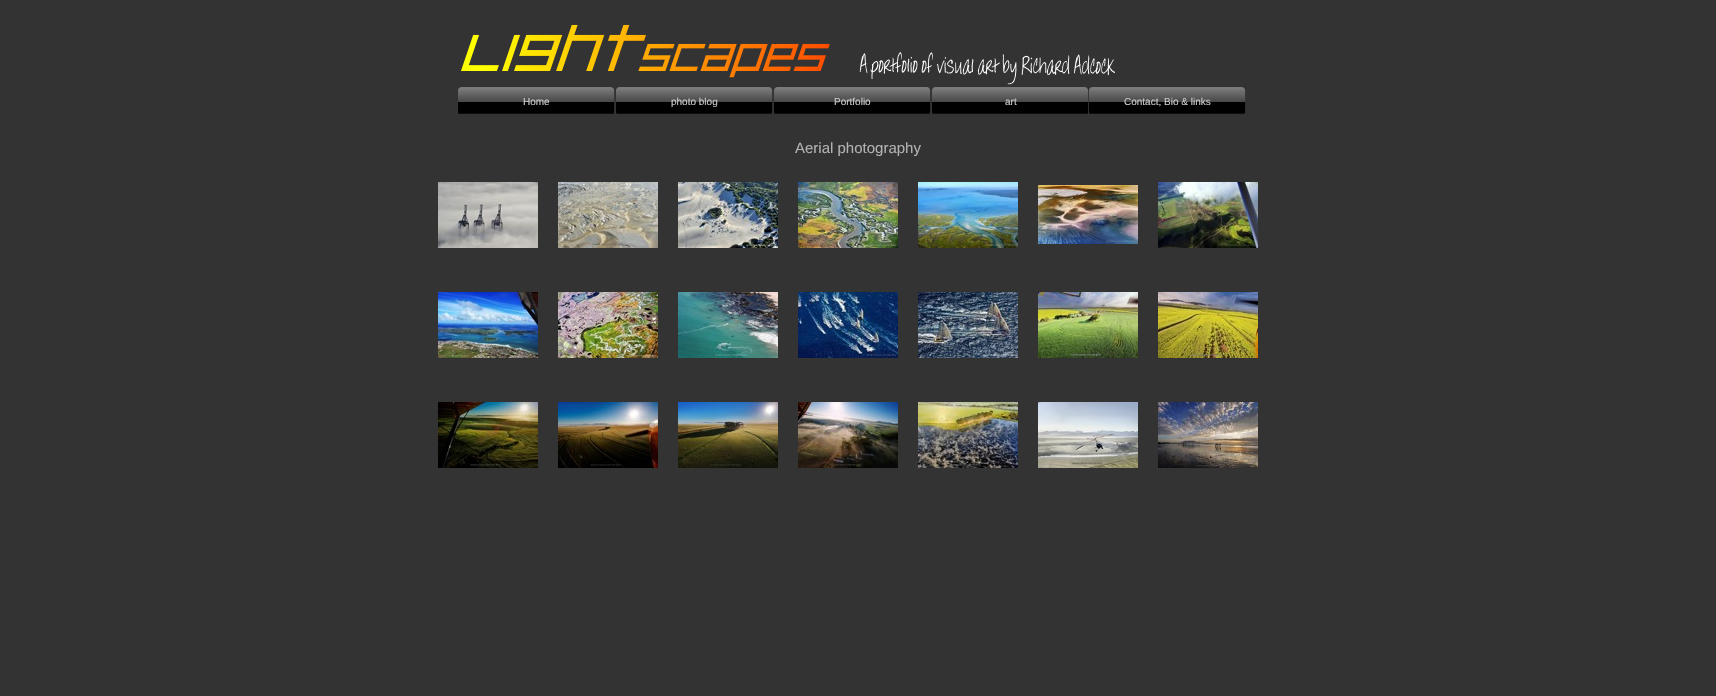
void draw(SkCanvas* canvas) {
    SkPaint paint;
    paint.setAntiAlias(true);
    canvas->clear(0xFF333333);
    canvas->drawImageRect(SkImages::DeferredFromEncodedData(SkData::MakeFromFileName("img1.png")), SkRect::MakeXYWH(461, 24, 369, 54), SkSamplingOptions());
    canvas->drawImageRect(SkImages::DeferredFromEncodedData(SkData::MakeFromFileName("img2.png")), SkRect::MakeXYWH(859, 52, 256, 33), SkSamplingOptions());
    canvas->drawImageRect(SkImages::DeferredFromEncodedData(SkData::MakeFromFileName("img3.png")), SkRect::MakeXYWH(458, 87, 157, 27), SkSamplingOptions());
    SkFont font1(fontMgr->matchFamilyStyle("Liberation Sans", SkFontStyle::Normal()), 10);
    font1.setSubpixel(true);
    paint.setColor(0xFFCCCCCC);
    canvas->drawString("Home", 523, 105, font1, paint);
    canvas->drawImageRect(SkImages::DeferredFromEncodedData(SkData::MakeFromFileName("img3.png")), SkRect::MakeXYWH(616, 87, 157, 27), SkSamplingOptions());
    canvas->drawString("photo blog", 671, 105, font1, paint);
    canvas->drawImageRect(SkImages::DeferredFromEncodedData(SkData::MakeFromFileName("img3.png")), SkRect::MakeXYWH(774, 87, 157, 27), SkSamplingOptions());
    canvas->drawString("Portfolio", 834, 105, font1, paint);
    canvas->drawImageRect(SkImages::DeferredFromEncodedData(SkData::MakeFromFileName("img3.png")), SkRect::MakeXYWH(932, 87, 157, 27), SkSamplingOptions());
    canvas->drawString("art", 1005, 105, font1, paint);
    canvas->drawImageRect(SkImages::DeferredFromEncodedData(SkData::MakeFromFileName("img3.png")), SkRect::MakeXYWH(1089, 87, 157, 27), SkSamplingOptions());
    canvas->drawString("Contact, Bio & links", 1124, 105, font1, paint);
    SkFont font2(fontMgr->matchFamilyStyle("Liberation Sans", SkFontStyle::Normal()), 15);
    font2.setSubpixel(true);
    paint.setColor(0xFFB2B2B2);
    canvas->drawString("Aerial photography", 795, 153, font2, paint);
    canvas->drawImageRect(SkImages::DeferredFromEncodedData(SkData::MakeFromFileName("img4.png")), SkRect::MakeXYWH(438, 182, 100, 66), SkSamplingOptions());
    canvas->drawImageRect(SkImages::DeferredFromEncodedData(SkData::MakeFromFileName("img5.png")), SkRect::MakeXYWH(558, 182, 100, 66), SkSamplingOptions());
    canvas->drawImageRect(SkImages::DeferredFromEncodedData(SkData::MakeFromFileName("img6.png")), SkRect::MakeXYWH(678, 182, 100, 66), SkSamplingOptions());
    canvas->drawImageRect(SkImages::DeferredFromEncodedData(SkData::MakeFromFileName("img7.png")), SkRect::MakeXYWH(798, 182, 100, 66), SkSamplingOptions());
    canvas->drawImageRect(SkImages::DeferredFromEncodedData(SkData::MakeFromFileName("img8.png")), SkRect::MakeXYWH(918, 182, 100, 66), SkSamplingOptions());
    canvas->drawImageRect(SkImages::DeferredFromEncodedData(SkData::MakeFromFileName("img9.png")), SkRect::MakeXYWH(1038, 185, 100, 59), SkSamplingOptions());
    canvas->drawImageRect(SkImages::DeferredFromEncodedData(SkData::MakeFromFileName("img10.png")), SkRect::MakeXYWH(1158, 182, 100, 66), SkSamplingOptions());
    canvas->drawImageRect(SkImages::DeferredFromEncodedData(SkData::MakeFromFileName("img11.png")), SkRect::MakeXYWH(438, 292, 100, 66), SkSamplingOptions());
    canvas->drawImageRect(SkImages::DeferredFromEncodedData(SkData::MakeFromFileName("img12.png")), SkRect::MakeXYWH(558, 292, 100, 66), SkSamplingOptions());
    canvas->drawImageRect(SkImages::DeferredFromEncodedData(SkData::MakeFromFileName("img13.png")), SkRect::MakeXYWH(678, 292, 100, 66), SkSamplingOptions());
    canvas->drawImageRect(SkImages::DeferredFromEncodedData(SkData::MakeFromFileName("img14.png")), SkRect::MakeXYWH(798, 292, 100, 66), SkSamplingOptions());
    canvas->drawImageRect(SkImages::DeferredFromEncodedData(SkData::MakeFromFileName("img15.png")), SkRect::MakeXYWH(918, 292, 100, 66), SkSamplingOptions());
    canvas->drawImageRect(SkImages::DeferredFromEncodedData(SkData::MakeFromFileName("img16.png")), SkRect::MakeXYWH(1038, 292, 100, 66), SkSamplingOptions());
    canvas->drawImageRect(SkImages::DeferredFromEncodedData(SkData::MakeFromFileName("img17.png")), SkRect::MakeXYWH(1158, 292, 100, 66), SkSamplingOptions());
    canvas->drawImageRect(SkImages::DeferredFromEncodedData(SkData::MakeFromFileName("img18.png")), SkRect::MakeXYWH(438, 402, 100, 66), SkSamplingOptions());
    canvas->drawImageRect(SkImages::DeferredFromEncodedData(SkData::MakeFromFileName("img19.png")), SkRect::MakeXYWH(558, 402, 100, 66), SkSamplingOptions());
    canvas->drawImageRect(SkImages::DeferredFromEncodedData(SkData::MakeFromFileName("img20.png")), SkRect::MakeXYWH(678, 402, 100, 66), SkSamplingOptions());
    canvas->drawImageRect(SkImages::DeferredFromEncodedData(SkData::MakeFromFileName("img21.png")), SkRect::MakeXYWH(798, 402, 100, 66), SkSamplingOptions());
    canvas->drawImageRect(SkImages::DeferredFromEncodedData(SkData::MakeFromFileName("img22.png")), SkRect::MakeXYWH(918, 402, 100, 66), SkSamplingOptions());
    canvas->drawImageRect(SkImages::DeferredFromEncodedData(SkData::MakeFromFileName("img23.png")), SkRect::MakeXYWH(1038, 402, 100, 66), SkSamplingOptions());
    canvas->drawImageRect(SkImages::DeferredFromEncodedData(SkData::MakeFromFileName("img24.png")), SkRect::MakeXYWH(1158, 402, 100, 66), SkSamplingOptions());
}
